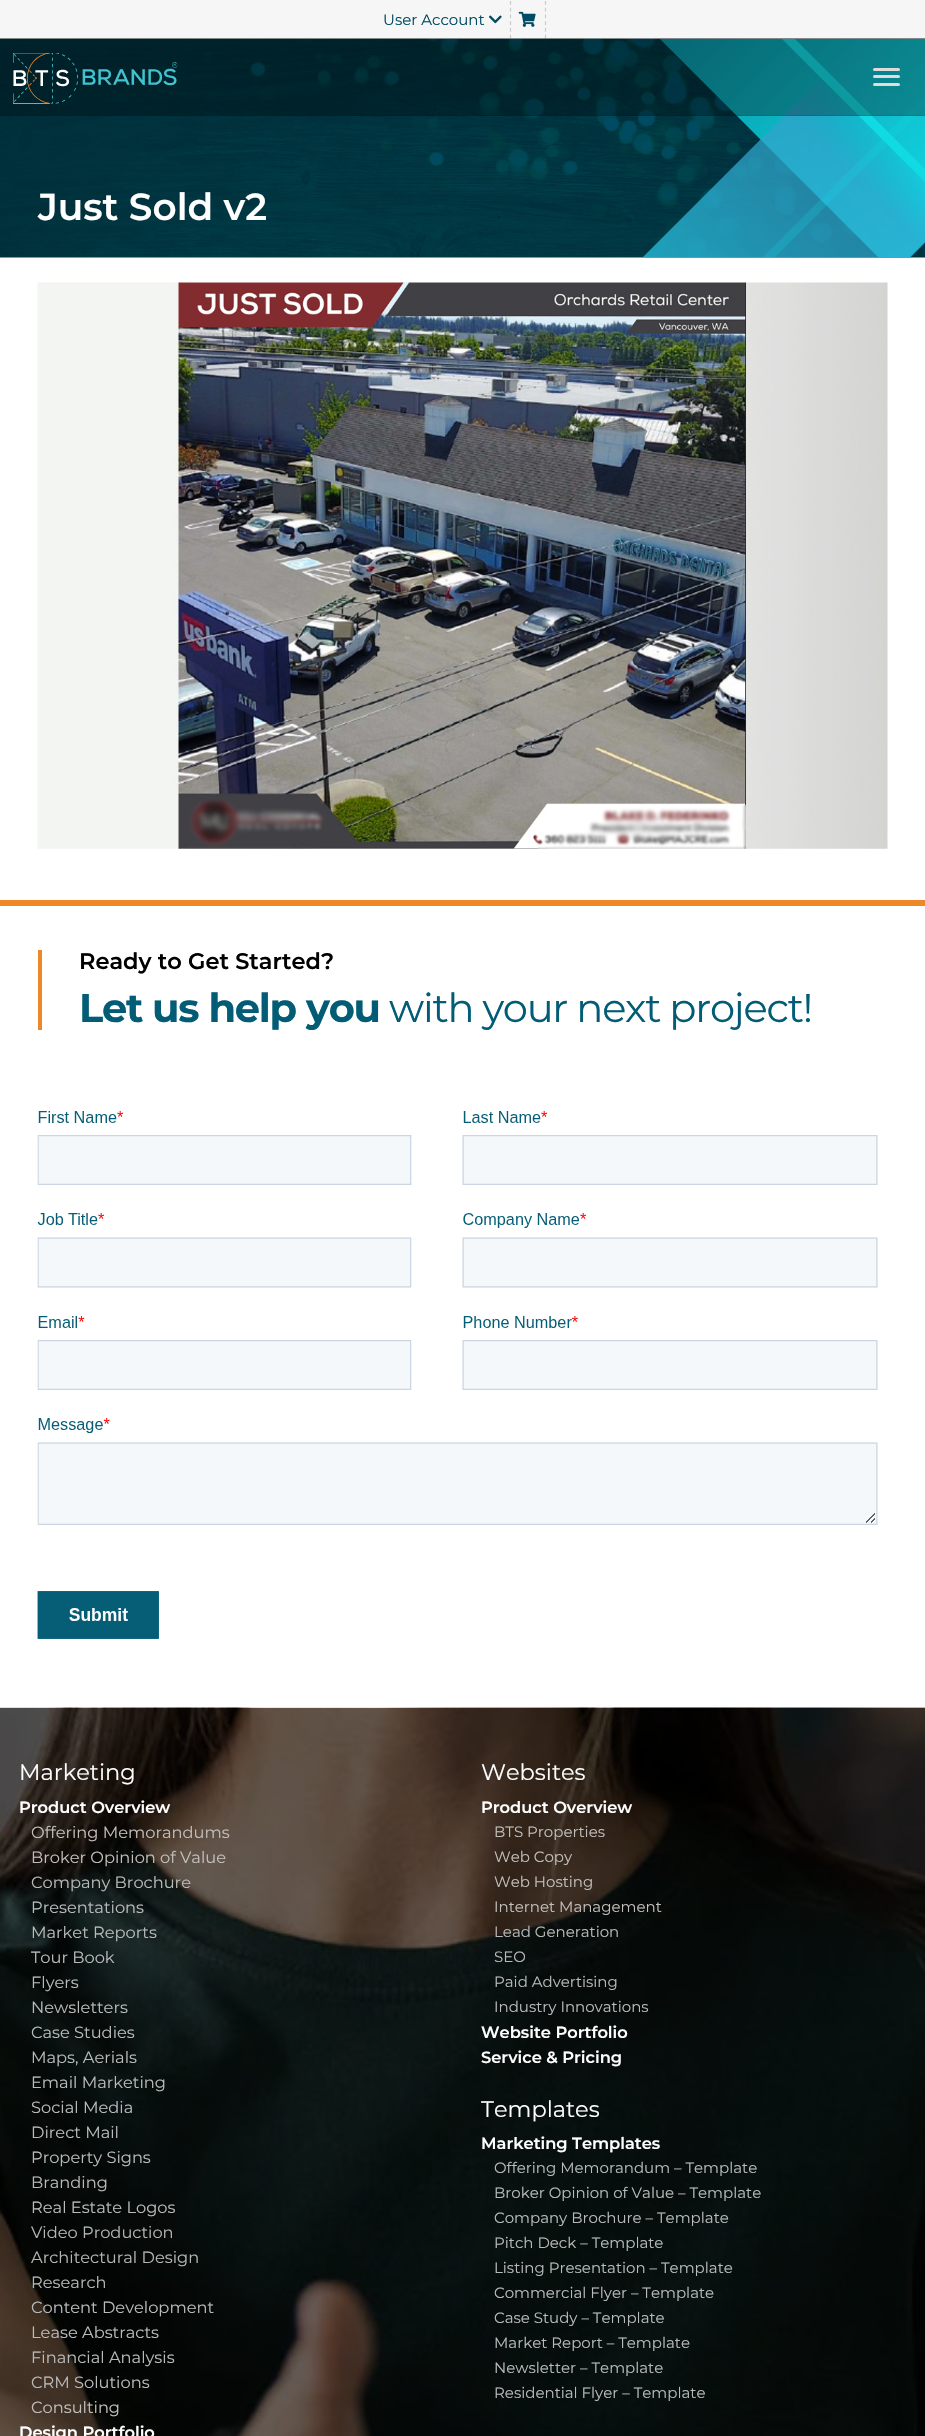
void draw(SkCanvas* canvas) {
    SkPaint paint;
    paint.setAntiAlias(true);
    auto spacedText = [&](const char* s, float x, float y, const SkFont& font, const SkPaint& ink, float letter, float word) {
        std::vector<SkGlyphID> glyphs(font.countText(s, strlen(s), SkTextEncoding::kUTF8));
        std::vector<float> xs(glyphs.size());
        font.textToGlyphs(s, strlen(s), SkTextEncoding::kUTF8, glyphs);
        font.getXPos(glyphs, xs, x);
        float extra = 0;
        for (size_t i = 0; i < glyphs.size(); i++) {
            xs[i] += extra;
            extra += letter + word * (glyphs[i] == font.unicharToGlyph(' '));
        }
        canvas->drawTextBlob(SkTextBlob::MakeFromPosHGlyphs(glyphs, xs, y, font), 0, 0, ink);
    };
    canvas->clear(0xFFFFFFFF);
    paint.setColor(0xFFF6F6F6);
    canvas->drawRect(SkRect::MakeXYWH(0, 0, 925, 39), paint);
    paint.setStyle(SkPaint::kStroke_Style);
    paint.setStrokeWidth(1.2f);
    paint.setColor(0xFFCCCCCC);
    paint.setPathEffect(SkDashPathEffect::Make({{3.75f, 3}}, 0));
    canvas->drawPath(SkPathBuilder().moveTo(510.5f, 1).lineTo(510.5f, 39).detach(), paint);
    paint.setPathEffect(nullptr);
    SkFont font1(fontMgr->matchFamilyStyle("Montserrat", SkFontStyle::Normal()), 15);
    font1.setSubpixel(true);
    paint.setStyle(SkPaint::kFill_Style);
    paint.setColor(0xFF004C64);
    canvas->drawString("User Account", 383, 25, font1, paint);
    canvas->drawImageRect(SkImages::DeferredFromEncodedData(SkData::MakeFromFileName("img1.png")), SkRect::MakeXYWH(489, 15, 13, 9), SkSamplingOptions());
    paint.setStyle(SkPaint::kStroke_Style);
    paint.setColor(0xFFCCCCCC);
    paint.setPathEffect(SkDashPathEffect::Make({{3.75f, 3}}, 0));
    canvas->drawPath(SkPathBuilder().moveTo(545.5f, 1).lineTo(545.5f, 39).detach(), paint);
    paint.setPathEffect(nullptr);
    canvas->drawImageRect(SkImages::DeferredFromEncodedData(SkData::MakeFromFileName("img2.png")), SkRect::MakeXYWH(518, 11, 18, 16), SkSamplingOptions());
    canvas->drawImageRect(SkImages::DeferredFromEncodedData(SkData::MakeFromFileName("img4.png")), SkRect::MakeXYWH(0, 38, 925, 220), SkSamplingOptions());
    canvas->save();
    canvas->clipRect(SkRect::MakeXYWH(415, 39, 510, 219));
    paint.setStyle(SkPaint::kFill_Style);
    {
        const SkColor colors[] = {0xFF42C2CF, 0xFF004C64, 0xFF10DBE5};
        const float stops[] = {0, 0, 0.99f};
        const SkPoint ends[] = {{495, -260}, {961, 205}};
        paint.setShader(SkGradientShader::MakeLinear(ends, colors, stops, 3, SkTileMode::kClamp));
        paint.setAlpha(255);
    }
    canvas->drawPath(SkPathBuilder().moveTo(699, -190).lineTo(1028, 139).lineTo(894, 273).lineTo(431, -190).close().detach(), paint);
    {
        const SkColor colors[] = {0xFF10DBE5, 0xB332A0CA, 0x122C94C8, 0x002C94C8};
        const float stops[] = {0, 0.82f, 0.9f, 1};
        const SkPoint ends[] = {{480, 555}, {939, 96}};
        paint.setShader(SkGradientShader::MakeLinear(ends, colors, stops, 4, SkTileMode::kClamp));
        paint.setAlpha(255);
    }
    canvas->drawPath(SkPathBuilder().moveTo(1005, 163).lineTo(683, 485).lineTo(415, 485).lineTo(871, 29).close().detach(), paint);
    paint.setShader(nullptr);
    paint.setColor(0xFF10DBE5);
    canvas->drawPath(SkPathBuilder().moveTo(785, 485).lineTo(773, 485).lineTo(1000, 257).lineTo(553, -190).lineTo(566, -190).lineTo(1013, 257).close().detach(), paint);
    paint.setColor(0x3310DBE5);
    canvas->drawPath(SkPathBuilder().moveTo(547, 485).lineTo(535, 485).lineTo(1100, -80).lineTo(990, -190).lineTo(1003, -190).lineTo(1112, -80).close().detach(), paint);
    canvas->restore();
    paint.setColor(0x4D000000);
    canvas->drawRect(SkRect::MakeXYWH(0, 38, 925, 78), paint);
    paint.setColor(0x1A000000);
    canvas->drawRect(SkRect::MakeXYWH(0, 115, 925, 1), paint);
    canvas->drawImageRect(SkImages::DeferredFromEncodedData(SkData::MakeFromFileName("img3.png")), SkRect::MakeXYWH(13, 53, 165, 51), SkSamplingOptions());
    paint.setColor(0xFFDDDDDD);
    canvas->drawRoundRect(SkRect::MakeXYWH(873, 68, 27, 3), 1.5f, 1.5f, paint);
    canvas->drawRoundRect(SkRect::MakeXYWH(873, 75, 27, 3), 1.5f, 1.5f, paint);
    canvas->drawRoundRect(SkRect::MakeXYWH(873, 83, 27, 3), 1.5f, 1.5f, paint);
    SkFont font2(fontMgr->matchFamilyStyle("Montserrat", SkFontStyle(600, SkFontStyle::kNormal_Width, SkFontStyle::kUpright_Slant)), 37.5f);
    font2.setSubpixel(true);
    paint.setColor(0xFFFFFFFF);
    canvas->drawString("Just Sold v2", 38, 220, font2, paint);
    canvas->drawImageRect(SkImages::DeferredFromEncodedData(SkData::MakeFromFileName("img5.png")), SkRect::MakeXYWH(37, 282, 851, 567), SkSamplingOptions());
    paint.setColor(0xFFED8727);
    canvas->drawRect(SkRect::MakeXYWH(0, 900, 925, 6), paint);
    canvas->drawRect(SkRect::MakeXYWH(38, 950, 4, 80), paint);
    SkFont font3(fontMgr->matchFamilyStyle("Montserrat", SkFontStyle(600, SkFontStyle::kNormal_Width, SkFontStyle::kUpright_Slant)), 22.5f);
    font3.setSubpixel(true);
    paint.setColor(0xFF000000);
    canvas->drawString("Ready to Get Started?", 79, 969, font3, paint);
    SkFont font4(fontMgr->matchFamilyStyle("Montserrat", SkFontStyle::Bold()), 40);
    font4.setSubpixel(true);
    paint.setColor(0xFF035C75);
    spacedText("Let us help you", 79, 1022, font4, paint, -1.25f, 0);
    SkFont font5(fontMgr->matchFamilyStyle("Montserrat", SkFontStyle::Normal()), 40);
    font5.setSubpixel(true);
    spacedText("with your next project!", 389, 1022, font5, paint, -1.25f, 0);
    canvas->drawImageRect(SkImages::DeferredFromEncodedData(SkData::MakeFromFileName("img6.png")), SkRect::MakeXYWH(37, 1111, 841, 528), SkSamplingOptions());
    canvas->drawImageRect(SkImages::DeferredFromEncodedData(SkData::MakeFromFileName("img7.png")), SkRect::MakeXYWH(0, 1707, 925, 729), SkSamplingOptions());
    SkFont font6(fontMgr->matchFamilyStyle("Montserrat", SkFontStyle::Normal()), 22.5f);
    font6.setSubpixel(true);
    paint.setColor(0xFFFFFFFF);
    canvas->drawString("Marketing", 19, 1780, font6, paint);
    SkFont font7(fontMgr->matchFamilyStyle("Montserrat", SkFontStyle(600, SkFontStyle::kNormal_Width, SkFontStyle::kUpright_Slant)), 16.25f);
    font7.setSubpixel(true);
    canvas->drawString("Product Overview", 19, 1813, font7, paint);
    SkFont font8(fontMgr->matchFamilyStyle("Montserrat", SkFontStyle::Normal()), 16.25f);
    font8.setSubpixel(true);
    paint.setColor(0xFFC1BEBB);
    canvas->drawString("Offering Memorandums", 31, 1838, font8, paint);
    canvas->drawString("Broker Opinion of Value", 31, 1863, font8, paint);
    paint.setColor(0xFFB9BABA);
    canvas->drawString("Company Brochure", 31, 1888, font8, paint);
    canvas->drawString("Presentations", 31, 1913, font8, paint);
    canvas->drawString("Market Reports", 31, 1938, font8, paint);
    canvas->drawString("Tour Book", 31, 1963, font8, paint);
    canvas->drawString("Flyers", 31, 1988, font8, paint);
    canvas->drawString("Newsletters", 31, 2013, font8, paint);
    canvas->drawString("Case Studies", 31, 2038, font8, paint);
    canvas->drawString("Maps, Aerials", 31, 2063, font8, paint);
    canvas->drawString("Email Marketing", 31, 2088, font8, paint);
    canvas->drawString("Social Media", 31, 2113, font8, paint);
    canvas->drawString("Direct Mail", 31, 2138, font8, paint);
    canvas->drawString("Property Signs", 31, 2163, font8, paint);
    canvas->drawString("Branding", 31, 2188, font8, paint);
    canvas->drawString("Real Estate Logos", 31, 2213, font8, paint);
    paint.setColor(0xFFB4B5B4);
    canvas->drawString("Video Production", 31, 2238, font8, paint);
    canvas->drawString("Architectural Design", 31, 2263, font8, paint);
    canvas->drawString("Research", 31, 2288, font8, paint);
    paint.setColor(0xFFB9BABA);
    canvas->drawString("Content Development", 31, 2313, font8, paint);
    canvas->drawString("Lease Abstracts", 31, 2338, font8, paint);
    canvas->drawString("Financial Analysis", 31, 2363, font8, paint);
    canvas->drawString("CRM Solutions", 31, 2388, font8, paint);
    paint.setColor(0xFFC1BEBB);
    canvas->drawString("Consulting", 31, 2413, font8, paint);
    paint.setColor(0xFFFFFFFF);
    canvas->drawString("Design Portfolio", 19, 2438, font7, paint);
    canvas->drawString("Websites", 481, 1780, font6, paint);
    canvas->drawString("Product Overview", 481, 1813, font7, paint);
    paint.setColor(0xFFC1BEBB);
    canvas->drawString("BTS Properties", 494, 1837, font1, paint);
    canvas->drawString("Web Copy", 494, 1862, font1, paint);
    canvas->drawString("Web Hosting", 494, 1887, font1, paint);
    canvas->drawString("Internet Management", 494, 1912, font1, paint);
    paint.setColor(0xFFB9BABA);
    canvas->drawString("Lead Generation", 494, 1937, font1, paint);
    canvas->drawString("SEO", 494, 1962, font1, paint);
    canvas->drawString("Paid Advertising", 494, 1987, font1, paint);
    canvas->drawString("Industry Innovations", 494, 2012, font1, paint);
    paint.setColor(0xFFFFFFFF);
    canvas->drawString("Website Portfolio", 481, 2038, font7, paint);
    canvas->drawString("Service & Pricing", 481, 2063, font7, paint);
    canvas->drawString("Templates", 481, 2117, font6, paint);
    canvas->drawString("Marketing Templates", 481, 2149, font7, paint);
    paint.setColor(0xFFB9BABA);
    canvas->drawString("Offering Memorandum – Template", 494, 2173, font1, paint);
    canvas->drawString("Broker Opinion of Value – Template", 494, 2198, font1, paint);
    canvas->drawString("Company Brochure – Template", 494, 2223, font1, paint);
    canvas->drawString("Pitch Deck – Template", 494, 2248, font1, paint);
    canvas->drawString("Listing Presentation – Template", 494, 2273, font1, paint);
    canvas->drawString("Commercial Flyer – Template", 494, 2298, font1, paint);
    canvas->drawString("Case Study – Template", 494, 2323, font1, paint);
    canvas->drawString("Market Report – Template", 494, 2348, font1, paint);
    canvas->drawString("Newsletter – Template", 494, 2373, font1, paint);
    canvas->drawString("Residential Flyer – Template", 494, 2398, font1, paint);
}
